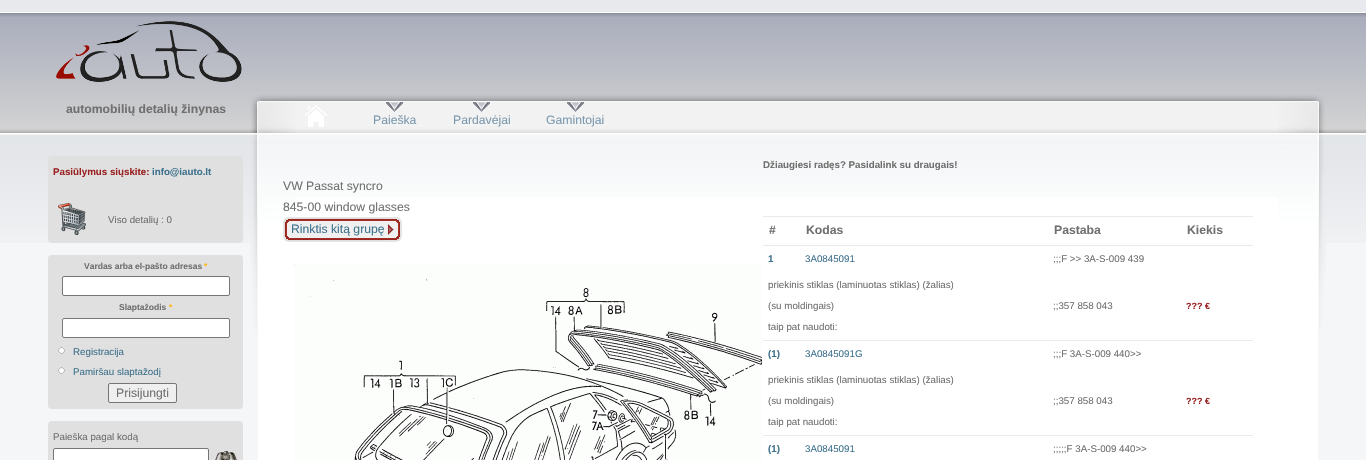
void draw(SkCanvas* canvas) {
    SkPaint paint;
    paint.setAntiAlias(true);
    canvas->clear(0xFFF5F6F7);
    paint.setColor(0xFFE7E9ED);
    canvas->drawRect(SkRect::MakeXYWH(0, 0, 1366, 12), paint);
    canvas->drawImageRect(SkImages::DeferredFromEncodedData(SkData::MakeFromFileName("img1.png")), SkRect::MakeXYWH(0, 12, 1366, 231), SkSamplingOptions());
    canvas->drawImageRect(SkImages::DeferredFromEncodedData(SkData::MakeFromFileName("img2.png")), SkRect::MakeXYWH(56, 21, 186, 61), SkSamplingOptions());
    SkFont font1(fontMgr->matchFamilyStyle("Liberation Sans", SkFontStyle::Bold()), 12.2f);
    font1.setSubpixel(true);
    paint.setColor(0xFF707070);
    canvas->drawString("automobilių detalių žinynas", 66, 113, font1, paint);
    paint.setColor(0xFFE0E0E0);
    canvas->drawRoundRect(SkRect::MakeXYWH(48, 156, 195, 87), 4, 4, paint);
    SkFont font2(fontMgr->matchFamilyStyle("Liberation Sans", SkFontStyle::Bold()), 9.75f);
    font2.setSubpixel(true);
    paint.setColor(0xFF992222);
    canvas->drawString("Pasiūlymus siųskite:", 53, 175, font2, paint);
    paint.setColor(0xFF3F728D);
    canvas->drawString("info@iauto.lt", 152, 175, font2, paint);
    canvas->drawImageRect(SkImages::DeferredFromEncodedData(SkData::MakeFromFileName("img3.png")), SkRect::MakeXYWH(58, 203, 28, 32), SkSamplingOptions());
    SkFont font3(fontMgr->matchFamilyStyle("Liberation Sans", SkFontStyle::Normal()), 9.75f);
    font3.setSubpixel(true);
    paint.setColor(0xFF707070);
    canvas->drawString("Viso detalių : 0", 108, 223, font3, paint);
    paint.setColor(0xFFE0E0E0);
    canvas->drawRoundRect(SkRect::MakeXYWH(48, 255, 195, 154), 4, 4, paint);
    SkFont font4(fontMgr->matchFamilyStyle("Liberation Sans", SkFontStyle::Bold()), 8.5f);
    font4.setSubpixel(true);
    paint.setColor(0xFF707070);
    canvas->drawString("Vardas arba el-pašto adresas", 84, 269, font4, paint);
    paint.setColor(0xFFFEB517);
    canvas->drawString("*", 204, 269, font4, paint);
    paint.setColor(0xFFFFFFFF);
    canvas->drawRoundRect(SkRect::MakeXYWH(62.5f, 276.5f, 167, 19), 1.5f, 1.5f, paint);
    paint.setStyle(SkPaint::kStroke_Style);
    paint.setStrokeWidth(1);
    paint.setColor(0xFF767676);
    canvas->drawRoundRect(SkRect::MakeXYWH(62.5f, 276.5f, 167, 19), 1.5f, 1.5f, paint);
    paint.setStyle(SkPaint::kFill_Style);
    paint.setColor(0xFF707070);
    canvas->drawString("Slaptažodis", 119, 310, font4, paint);
    paint.setColor(0xFFFEB517);
    canvas->drawString("*", 169, 310, font4, paint);
    paint.setColor(0xFFFFFFFF);
    canvas->drawRoundRect(SkRect::MakeXYWH(62.5f, 318.5f, 167, 19), 1.5f, 1.5f, paint);
    paint.setStyle(SkPaint::kStroke_Style);
    paint.setColor(0xFF767676);
    canvas->drawRoundRect(SkRect::MakeXYWH(62.5f, 318.5f, 167, 19), 1.5f, 1.5f, paint);
    canvas->drawImageRect(SkImages::DeferredFromEncodedData(SkData::MakeFromFileName("img4.png")), SkRect::MakeXYWH(58, 347, 7, 7), SkSamplingOptions());
    paint.setStyle(SkPaint::kFill_Style);
    paint.setColor(0xFF3F728D);
    canvas->drawString("Registracija", 73, 355, font3, paint);
    canvas->drawImageRect(SkImages::DeferredFromEncodedData(SkData::MakeFromFileName("img4.png")), SkRect::MakeXYWH(58, 367, 7, 7), SkSamplingOptions());
    canvas->drawString("Pamiršau slaptažodį", 73, 375, font3, paint);
    paint.setColor(0xFFEFEFEF);
    canvas->drawRoundRect(SkRect::MakeXYWH(108.5f, 383.5f, 68, 19), 1.5f, 1.5f, paint);
    paint.setStyle(SkPaint::kStroke_Style);
    paint.setColor(0xFF767676);
    canvas->drawRoundRect(SkRect::MakeXYWH(108.5f, 383.5f, 68, 19), 1.5f, 1.5f, paint);
    SkFont font5(fontMgr->matchFamilyStyle("Liberation Sans", SkFontStyle::Normal()), 12.2f);
    font5.setSubpixel(true);
    paint.setStyle(SkPaint::kFill_Style);
    paint.setColor(0xFF707070);
    canvas->drawString("Prisijungti", 116, 397, font5, paint);
    paint.setColor(0xFFE0E0E0);
    canvas->drawRoundRect(SkRect::MakeXYWH(48, 421, 195, 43), 4, 4, paint);
    paint.setColor(0xFF707070);
    canvas->drawString("Paieška pagal kodą", 53, 440, font3, paint);
    paint.setColor(0xFFFFFFFF);
    canvas->drawRoundRect(SkRect::MakeXYWH(53.5f, 448.5f, 155, 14), 1.5f, 1.5f, paint);
    paint.setStyle(SkPaint::kStroke_Style);
    paint.setColor(0xFF767676);
    canvas->drawRoundRect(SkRect::MakeXYWH(53.5f, 448.5f, 155, 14), 1.5f, 1.5f, paint);
    canvas->drawImageRect(SkImages::DeferredFromEncodedData(SkData::MakeFromFileName("img5.png")), SkRect::MakeXYWH(215, 451, 22, 9), SkSamplingOptions());
    paint.setStyle(SkPaint::kFill_Style);
    paint.setColor(0xFFFFFFFF);
    canvas->drawRect(SkRect::MakeXYWH(258, 197, 1060, 263), paint);
    canvas->drawImageRect(SkImages::DeferredFromEncodedData(SkData::MakeFromFileName("img6.png")), SkRect::MakeXYWH(258, 92, 1060, 105), SkSamplingOptions());
    canvas->drawImageRect(SkImages::DeferredFromEncodedData(SkData::MakeFromFileName("img7.png")), SkRect::MakeXYWH(1278, 96, 48, 235), SkSamplingOptions());
    canvas->drawImageRect(SkImages::DeferredFromEncodedData(SkData::MakeFromFileName("img8.png")), SkRect::MakeXYWH(250, 96, 46, 237), SkSamplingOptions());
    canvas->drawImageRect(SkImages::DeferredFromEncodedData(SkData::MakeFromFileName("img9.png")), SkRect::MakeXYWH(305, 105, 23, 22), SkSamplingOptions());
    canvas->drawImageRect(SkImages::DeferredFromEncodedData(SkData::MakeFromFileName("img10.png")), SkRect::MakeXYWH(386, 101, 17, 11), SkSamplingOptions());
    paint.setColor(0xFF7C99AE);
    canvas->drawString("Paieška", 373, 124, font5, paint);
    canvas->drawImageRect(SkImages::DeferredFromEncodedData(SkData::MakeFromFileName("img10.png")), SkRect::MakeXYWH(473, 101, 17, 11), SkSamplingOptions());
    canvas->drawString("Pardavėjai", 453, 124, font5, paint);
    canvas->drawImageRect(SkImages::DeferredFromEncodedData(SkData::MakeFromFileName("img10.png")), SkRect::MakeXYWH(567, 101, 17, 11), SkSamplingOptions());
    canvas->drawString("Gamintojai", 546, 124, font5, paint);
    paint.setColor(0xFFF2F2F2);
    canvas->drawRect(SkRect::MakeXYWH(257, 142, 1062, 1), paint);
    paint.setColor(0xFF707070);
    canvas->drawString("Džiaugiesi radęs? Pasidalink su draugais!", 763, 168, font2, paint);
    canvas->drawString("VW Passat syncro", 283, 190, font5, paint);
    canvas->drawString("845-00 window glasses", 283, 211, font5, paint);
    canvas->drawImageRect(SkImages::DeferredFromEncodedData(SkData::MakeFromFileName("img11.png")), SkRect::MakeXYWH(384, 217, 18, 25), SkSamplingOptions());
    canvas->drawImageRect(SkImages::DeferredFromEncodedData(SkData::MakeFromFileName("img12.png")), SkRect::MakeXYWH(283, 217, 101, 25), SkSamplingOptions());
    paint.setColor(0xFF3F728D);
    canvas->drawString("Rinktis kitą grupę", 291, 233, font5, paint);
    canvas->drawImageRect(SkImages::DeferredFromEncodedData(SkData::MakeFromFileName("img13.png")), SkRect::MakeXYWH(294, 264, 468, 196), SkSamplingOptions());
    paint.setColor(0xFF707070);
    canvas->drawString("#", 769, 234, font1, paint);
    canvas->drawString("Kodas", 806, 234, font1, paint);
    canvas->drawString("Pastaba", 1054, 234, font1, paint);
    paint.setColor(0xFFE7EAEE);
    canvas->drawRect(SkRect::MakeXYWH(763, 216, 490, 1), paint);
    paint.setColor(0xFF707070);
    canvas->drawString("Kiekis", 1187, 234, font1, paint);
    paint.setColor(0xFFE7EAEE);
    canvas->drawRect(SkRect::MakeXYWH(763, 245, 490, 1), paint);
    paint.setColor(0xFF3F728D);
    canvas->drawString("1", 768, 262, font2, paint);
    canvas->drawString("3A0845091", 805, 262, font3, paint);
    paint.setColor(0xFF707070);
    canvas->drawString(";;;F >> 3A-S-009 439", 1053, 262, font3, paint);
    canvas->drawString("priekinis stiklas (laminuotas stiklas) (žalias)", 768, 288, font3, paint);
    canvas->drawString("(su moldingais)", 768, 309, font3, paint);
    canvas->drawString("taip pat naudoti:", 768, 330, font3, paint);
    canvas->drawString(";;357 858 043", 1053, 309, font3, paint);
    SkFont font6(fontMgr->matchFamilyStyle("Liberation Sans", SkFontStyle::Bold()), 9);
    font6.setSubpixel(true);
    paint.setColor(0xFF992222);
    canvas->drawString("?\077? €", 1186, 309, font6, paint);
    paint.setColor(0xFFE7EAEE);
    canvas->drawRect(SkRect::MakeXYWH(763, 340, 490, 1), paint);
    paint.setColor(0xFF3F728D);
    canvas->drawString("(1)", 768, 357, font2, paint);
    canvas->drawString("3A0845091G", 805, 357, font3, paint);
    paint.setColor(0xFF707070);
    canvas->drawString(";;;F 3A-S-009 440>>", 1053, 357, font3, paint);
    canvas->drawString("priekinis stiklas (laminuotas stiklas) (žalias)", 768, 383, font3, paint);
    canvas->drawString("(su moldingais)", 768, 404, font3, paint);
    canvas->drawString("taip pat naudoti:", 768, 425, font3, paint);
    canvas->drawString(";;357 858 043", 1053, 404, font3, paint);
    paint.setColor(0xFF992222);
    canvas->drawString("?\077? €", 1186, 404, font6, paint);
    paint.setColor(0xFFE7EAEE);
    canvas->drawRect(SkRect::MakeXYWH(763, 435, 490, 1), paint);
    paint.setColor(0xFF3F728D);
    canvas->drawString("(1)", 768, 452, font2, paint);
    canvas->drawString("3A0845091", 805, 452, font3, paint);
    paint.setColor(0xFF707070);
    canvas->drawString(";;;;;F 3A-S-009 440>>", 1053, 452, font3, paint);
}
